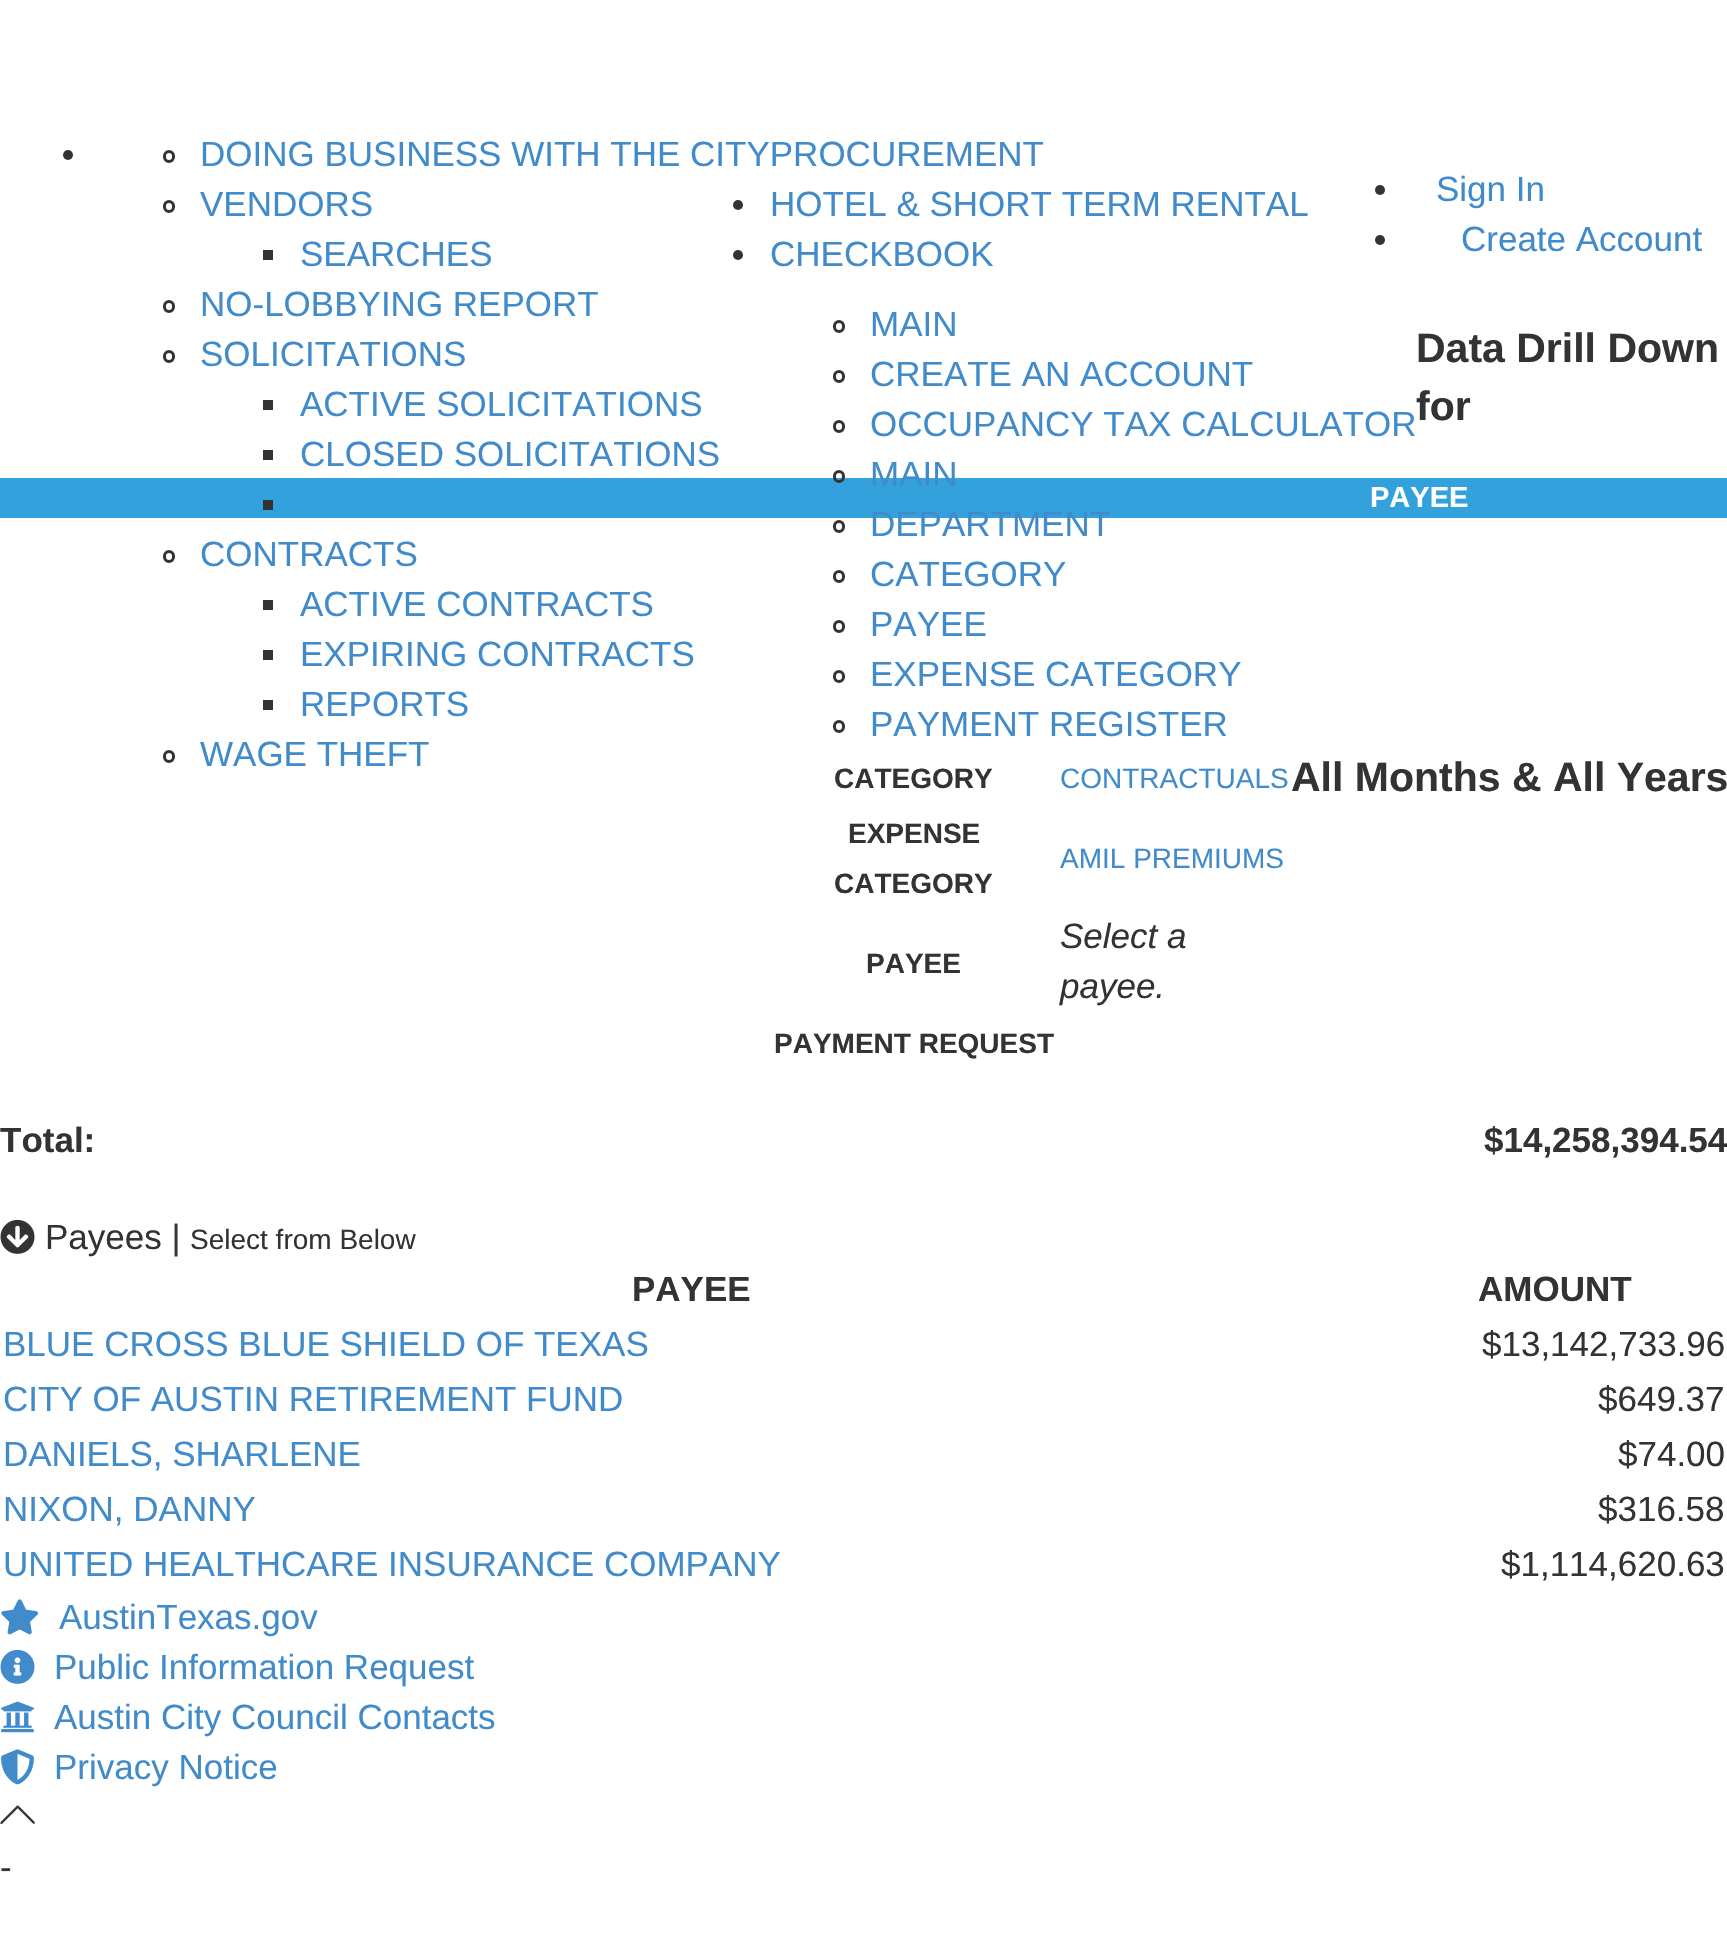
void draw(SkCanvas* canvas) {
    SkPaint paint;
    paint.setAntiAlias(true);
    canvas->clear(0xFFFFFFFF);
    paint.setColor(0xFF333333);
    canvas->drawCircle(68, 155, 5, paint);
    paint.setStyle(SkPaint::kStroke_Style);
    paint.setStrokeWidth(3);
    canvas->drawRoundRect(SkRect::MakeXYWH(164.5f, 151.5f, 9, 10), 4.5f, 4.5f, paint);
    SkFont font1(fontMgr->matchFamilyStyle("Liberation Sans", SkFontStyle::Normal()), 35);
    font1.setSubpixel(true);
    paint.setStyle(SkPaint::kFill_Style);
    paint.setColor(0xFF428BCA);
    canvas->drawString("DOING BUSINESS WITH THE CITYPROCUREMENT", 200, 166, font1, paint);
    paint.setStyle(SkPaint::kStroke_Style);
    paint.setColor(0xFF333333);
    canvas->drawRoundRect(SkRect::MakeXYWH(164.5f, 201.5f, 9, 10), 4.5f, 4.5f, paint);
    paint.setStyle(SkPaint::kFill_Style);
    paint.setColor(0xFF428BCA);
    canvas->drawString("VENDORS", 200, 216, font1, paint);
    paint.setColor(0xFF333333);
    canvas->drawRect(SkRect::MakeXYWH(263, 250, 10, 10), paint);
    paint.setColor(0xFF428BCA);
    canvas->drawString("SEARCHES", 300, 266, font1, paint);
    paint.setStyle(SkPaint::kStroke_Style);
    paint.setColor(0xFF333333);
    canvas->drawRoundRect(SkRect::MakeXYWH(164.5f, 301.5f, 9, 10), 4.5f, 4.5f, paint);
    paint.setStyle(SkPaint::kFill_Style);
    paint.setColor(0xFF428BCA);
    canvas->drawString("NO-LOBBYING REPORT", 200, 316, font1, paint);
    paint.setStyle(SkPaint::kStroke_Style);
    paint.setColor(0xFF333333);
    canvas->drawRoundRect(SkRect::MakeXYWH(164.5f, 351.5f, 9, 10), 4.5f, 4.5f, paint);
    paint.setStyle(SkPaint::kFill_Style);
    paint.setColor(0xFF428BCA);
    canvas->drawString("SOLICITATIONS", 200, 366, font1, paint);
    paint.setColor(0xFF333333);
    canvas->drawRect(SkRect::MakeXYWH(263, 400, 10, 10), paint);
    paint.setColor(0xFF428BCA);
    canvas->drawString("ACTIVE SOLICITATIONS", 300, 416, font1, paint);
    paint.setColor(0xFF333333);
    canvas->drawRect(SkRect::MakeXYWH(263, 450, 10, 10), paint);
    paint.setColor(0xFF428BCA);
    canvas->drawString("CLOSED SOLICITATIONS", 300, 466, font1, paint);
    paint.setColor(0xFF33A2DC);
    canvas->drawRect(SkRect::MakeXYWH(0, 478, 1727, 40), paint);
    paint.setColor(0xFF333333);
    canvas->drawRect(SkRect::MakeXYWH(263, 500, 10, 10), paint);
    paint.setStyle(SkPaint::kStroke_Style);
    canvas->drawRoundRect(SkRect::MakeXYWH(164.5f, 551.5f, 9, 10), 4.5f, 4.5f, paint);
    paint.setStyle(SkPaint::kFill_Style);
    paint.setColor(0xFF428BCA);
    canvas->drawString("CONTRACTS", 200, 566, font1, paint);
    paint.setColor(0xFF333333);
    canvas->drawRect(SkRect::MakeXYWH(263, 600, 10, 10), paint);
    paint.setColor(0xFF428BCA);
    canvas->drawString("ACTIVE CONTRACTS", 300, 616, font1, paint);
    paint.setColor(0xFF333333);
    canvas->drawRect(SkRect::MakeXYWH(263, 650, 10, 10), paint);
    paint.setColor(0xFF428BCA);
    canvas->drawString("EXPIRING CONTRACTS", 300, 666, font1, paint);
    paint.setColor(0xFF333333);
    canvas->drawRect(SkRect::MakeXYWH(263, 700, 10, 10), paint);
    paint.setColor(0xFF428BCA);
    canvas->drawString("REPORTS", 300, 716, font1, paint);
    paint.setStyle(SkPaint::kStroke_Style);
    paint.setColor(0xFF333333);
    canvas->drawRoundRect(SkRect::MakeXYWH(164.5f, 751.5f, 9, 10), 4.5f, 4.5f, paint);
    paint.setStyle(SkPaint::kFill_Style);
    paint.setColor(0xFF428BCA);
    canvas->drawString("WAGE THEFT", 200, 766, font1, paint);
    paint.setColor(0xFF333333);
    canvas->drawCircle(738, 205, 5, paint);
    paint.setColor(0xFF428BCA);
    canvas->drawString("HOTEL & SHORT TERM RENTAL", 770, 216, font1, paint);
    paint.setStyle(SkPaint::kStroke_Style);
    paint.setColor(0xFF333333);
    canvas->drawRoundRect(SkRect::MakeXYWH(834.5f, 321.5f, 9, 10), 4.5f, 4.5f, paint);
    paint.setStyle(SkPaint::kFill_Style);
    paint.setColor(0xFF428BCA);
    canvas->drawString("MAIN", 870, 336, font1, paint);
    paint.setStyle(SkPaint::kStroke_Style);
    paint.setColor(0xFF333333);
    canvas->drawRoundRect(SkRect::MakeXYWH(834.5f, 371.5f, 9, 10), 4.5f, 4.5f, paint);
    paint.setStyle(SkPaint::kFill_Style);
    paint.setColor(0xFF428BCA);
    canvas->drawString("CREATE AN ACCOUNT", 870, 386, font1, paint);
    paint.setStyle(SkPaint::kStroke_Style);
    paint.setColor(0xFF333333);
    canvas->drawRoundRect(SkRect::MakeXYWH(834.5f, 421.5f, 9, 10), 4.5f, 4.5f, paint);
    paint.setStyle(SkPaint::kFill_Style);
    paint.setColor(0xFF428BCA);
    canvas->drawString("OCCUPANCY TAX CALCULATOR", 870, 436, font1, paint);
    paint.setColor(0xFF333333);
    canvas->drawCircle(738, 255, 5, paint);
    paint.setColor(0xFF428BCA);
    canvas->drawString("CHECKBOOK", 770, 266, font1, paint);
    paint.setStyle(SkPaint::kStroke_Style);
    paint.setColor(0xFF333333);
    canvas->drawRoundRect(SkRect::MakeXYWH(834.5f, 471.5f, 9, 10), 4.5f, 4.5f, paint);
    paint.setStyle(SkPaint::kFill_Style);
    paint.setColor(0xFF428BCA);
    canvas->drawString("MAIN", 870, 486, font1, paint);
    paint.setStyle(SkPaint::kStroke_Style);
    paint.setColor(0xFF333333);
    canvas->drawRoundRect(SkRect::MakeXYWH(834.5f, 521.5f, 9, 10), 4.5f, 4.5f, paint);
    paint.setStyle(SkPaint::kFill_Style);
    paint.setColor(0xFF428BCA);
    canvas->drawString("DEPARTMENT", 870, 536, font1, paint);
    paint.setStyle(SkPaint::kStroke_Style);
    paint.setColor(0xFF333333);
    canvas->drawRoundRect(SkRect::MakeXYWH(834.5f, 571.5f, 9, 10), 4.5f, 4.5f, paint);
    paint.setStyle(SkPaint::kFill_Style);
    paint.setColor(0xFF428BCA);
    canvas->drawString("CATEGORY", 870, 586, font1, paint);
    paint.setStyle(SkPaint::kStroke_Style);
    paint.setColor(0xFF333333);
    canvas->drawRoundRect(SkRect::MakeXYWH(834.5f, 621.5f, 9, 10), 4.5f, 4.5f, paint);
    paint.setStyle(SkPaint::kFill_Style);
    paint.setColor(0xFF428BCA);
    canvas->drawString("PAYEE", 870, 636, font1, paint);
    paint.setStyle(SkPaint::kStroke_Style);
    paint.setColor(0xFF333333);
    canvas->drawRoundRect(SkRect::MakeXYWH(834.5f, 671.5f, 9, 10), 4.5f, 4.5f, paint);
    paint.setStyle(SkPaint::kFill_Style);
    paint.setColor(0xFF428BCA);
    canvas->drawString("EXPENSE CATEGORY", 870, 686, font1, paint);
    paint.setStyle(SkPaint::kStroke_Style);
    paint.setColor(0xFF333333);
    canvas->drawRoundRect(SkRect::MakeXYWH(834.5f, 721.5f, 9, 10), 4.5f, 4.5f, paint);
    paint.setStyle(SkPaint::kFill_Style);
    paint.setColor(0xFF428BCA);
    canvas->drawString("PAYMENT REGISTER", 870, 736, font1, paint);
    paint.setColor(0xFF333333);
    canvas->drawCircle(1380, 190, 5, paint);
    paint.setColor(0xFF428BCA);
    canvas->drawString("Sign In", 1436, 201, font1, paint);
    paint.setColor(0xFF333333);
    canvas->drawCircle(1380, 240, 5, paint);
    paint.setColor(0xFF428BCA);
    canvas->drawString("Create Account", 1461, 251, font1, paint);
    SkFont font2(fontMgr->matchFamilyStyle("Liberation Sans", SkFontStyle::Bold()), 41);
    font2.setSubpixel(true);
    paint.setColor(0xFF333333);
    canvas->drawString("Data Drill Down", 1416, 362, font2, paint);
    canvas->drawString("for", 1416, 420, font2, paint);
    canvas->drawString("All Months & All Years", 1291, 791, font2, paint);
    SkFont font3(fontMgr->matchFamilyStyle("Liberation Sans", SkFontStyle::Bold()), 29);
    font3.setSubpixel(true);
    paint.setColor(0xFFFFFFFF);
    canvas->drawString("PAYEE", 1370, 507, font3, paint);
    SkFont font4(fontMgr->matchFamilyStyle("Liberation Sans", SkFontStyle::Bold()), 28);
    font4.setSubpixel(true);
    paint.setColor(0xFF333333);
    canvas->drawString("CATEGORY", 834, 788, font4, paint);
    SkFont font5(fontMgr->matchFamilyStyle("Liberation Sans", SkFontStyle::Normal()), 28);
    font5.setSubpixel(true);
    paint.setColor(0xFF428BCA);
    canvas->drawString("CONTRACTUALS", 1060, 788, font5, paint);
    paint.setColor(0xFF333333);
    canvas->drawString("EXPENSE", 848, 843, font4, paint);
    canvas->drawString("CATEGORY", 834, 893, font4, paint);
    paint.setColor(0xFF428BCA);
    canvas->drawString("AMIL PREMIUMS", 1060, 868, font5, paint);
    paint.setColor(0xFF333333);
    canvas->drawString("PAYEE", 866, 973, font4, paint);
    SkFont font6(fontMgr->matchFamilyStyle("Liberation Sans", SkFontStyle::Italic()), 35);
    font6.setSubpixel(true);
    canvas->drawString("Select a", 1060, 948, font6, paint);
    canvas->drawString("payee.", 1060, 998, font6, paint);
    canvas->drawString("PAYMENT REQUEST", 774, 1053, font4, paint);
    SkFont font7(fontMgr->matchFamilyStyle("Liberation Sans", SkFontStyle::Bold()), 35);
    font7.setSubpixel(true);
    canvas->drawString("Total:", 0, 1152, font7, paint);
    canvas->drawString("$14,258,394.54", 1484, 1152, font7, paint);
    canvas->drawImageRect(SkImages::DeferredFromEncodedData(SkData::MakeFromFileName("img1.png")), SkRect::MakeXYWH(0, 1219, 35, 35), SkSamplingOptions());
    canvas->drawString("Payees |", 45, 1249, font1, paint);
    canvas->drawString("Select from Below", 190, 1249, font5, paint);
    canvas->drawString("PAYEE", 632, 1301, font7, paint);
    canvas->drawString("AMOUNT", 1478, 1301, font7, paint);
    paint.setColor(0xFF428BCA);
    canvas->drawString("BLUE CROSS BLUE SHIELD OF TEXAS", 3, 1356, font1, paint);
    paint.setColor(0xFF333333);
    canvas->drawString("$13,142,733.96", 1482, 1356, font1, paint);
    paint.setColor(0xFF428BCA);
    canvas->drawString("CITY OF AUSTIN RETIREMENT FUND", 3, 1411, font1, paint);
    paint.setColor(0xFF333333);
    canvas->drawString("$649.37", 1598, 1411, font1, paint);
    paint.setColor(0xFF428BCA);
    canvas->drawString("DANIELS, SHARLENE", 3, 1466, font1, paint);
    paint.setColor(0xFF333333);
    canvas->drawString("$74.00", 1618, 1466, font1, paint);
    paint.setColor(0xFF428BCA);
    canvas->drawString("NIXON, DANNY", 3, 1521, font1, paint);
    paint.setColor(0xFF333333);
    canvas->drawString("$316.58", 1598, 1521, font1, paint);
    paint.setColor(0xFF428BCA);
    canvas->drawString("UNITED HEALTHCARE INSURANCE COMPANY", 3, 1576, font1, paint);
    paint.setColor(0xFF333333);
    canvas->drawString("$1,114,620.63", 1501, 1576, font1, paint);
    canvas->drawImageRect(SkImages::DeferredFromEncodedData(SkData::MakeFromFileName("img2.png")), SkRect::MakeXYWH(1, 1599, 37, 36), SkSamplingOptions());
    paint.setColor(0xFF428BCA);
    canvas->drawString("AustinTexas.gov", 59, 1629, font1, paint);
    canvas->drawImageRect(SkImages::DeferredFromEncodedData(SkData::MakeFromFileName("img3.png")), SkRect::MakeXYWH(0, 1649, 35, 35), SkSamplingOptions());
    canvas->drawString("Public Information Request", 54, 1679, font1, paint);
    canvas->drawImageRect(SkImages::DeferredFromEncodedData(SkData::MakeFromFileName("img4.png")), SkRect::MakeXYWH(1, 1701, 33, 32), SkSamplingOptions());
    canvas->drawString("Austin City Council Contacts", 54, 1729, font1, paint);
    canvas->drawImageRect(SkImages::DeferredFromEncodedData(SkData::MakeFromFileName("img5.png")), SkRect::MakeXYWH(1, 1749, 33, 36), SkSamplingOptions());
    canvas->drawString("Privacy Notice", 54, 1779, font1, paint);
    canvas->drawImageRect(SkImages::DeferredFromEncodedData(SkData::MakeFromFileName("img6.png")), SkRect::MakeXYWH(0, 1805, 35, 19), SkSamplingOptions());
    paint.setColor(0xFF333333);
    canvas->drawString("-", 0, 1879, font1, paint);
}
